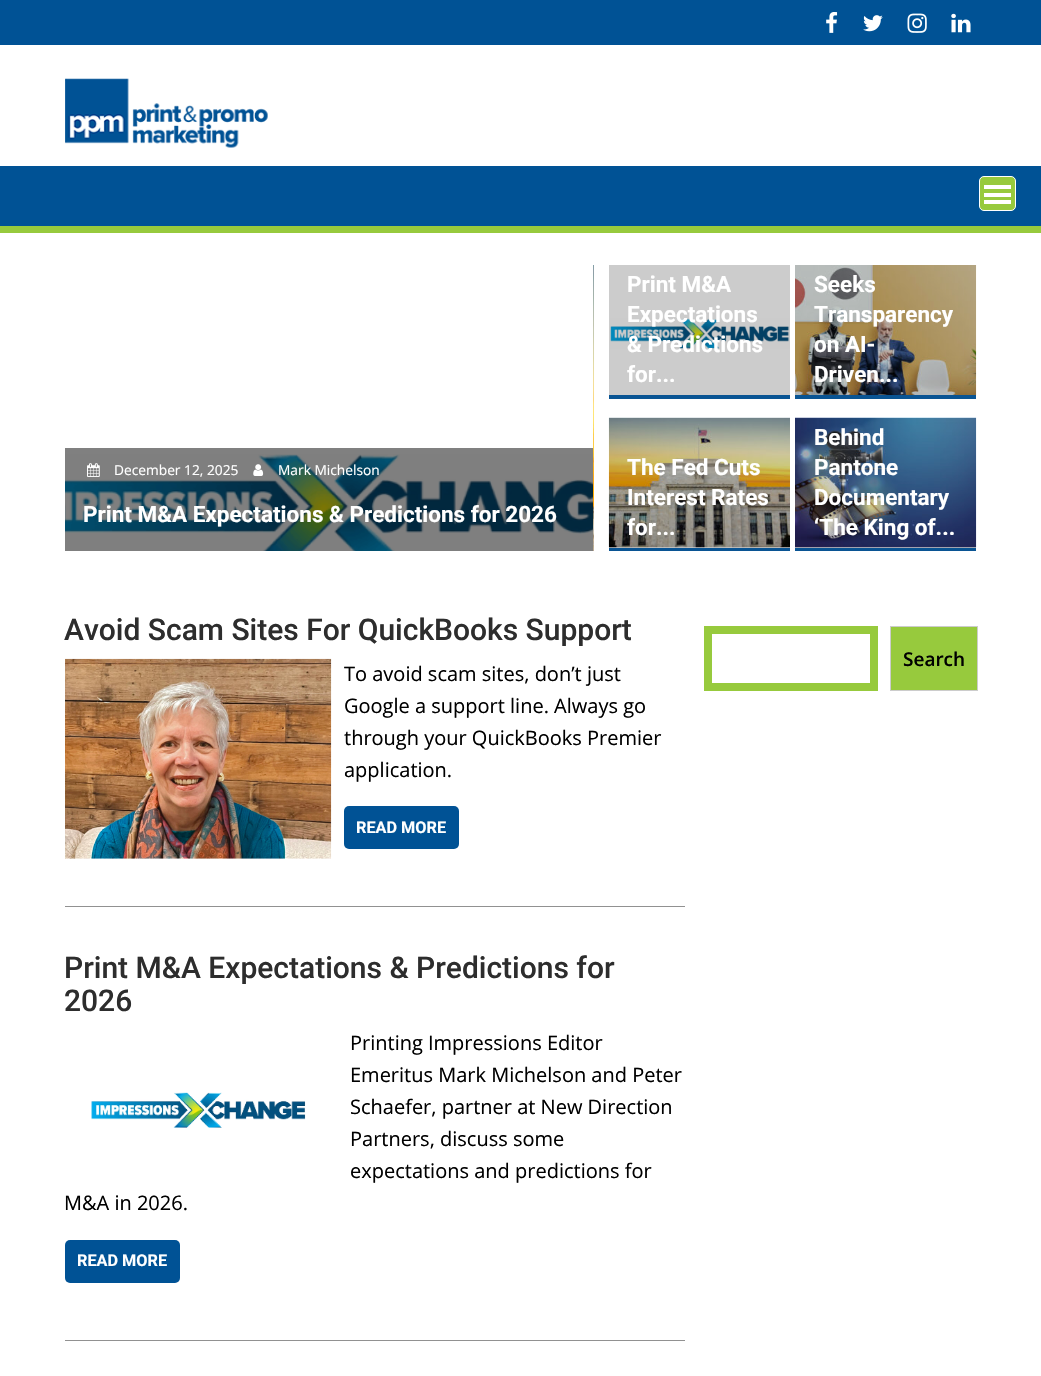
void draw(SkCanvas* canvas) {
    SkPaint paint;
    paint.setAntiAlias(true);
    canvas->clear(0xFFFFFFFF);
    paint.setColor(0xFFCCCCCC);
    canvas->drawRect(SkRect::MakeXYWH(795, 547, 181, 1), paint);
    canvas->drawRect(SkRect::MakeXYWH(609, 547, 181, 1), paint);
    canvas->drawRect(SkRect::MakeXYWH(609, 265, 181, 130), paint);
    paint.setColor(0xFF808080);
    canvas->drawRect(SkRect::MakeXYWH(65, 448, 528, 6), paint);
    paint.setColor(0xFF005295);
    canvas->drawRect(SkRect::MakeXYWH(0, 0, 1041, 45), paint);
    canvas->drawImageRect(SkImages::DeferredFromEncodedData(SkData::MakeFromFileName("img1.png")), SkRect::MakeXYWH(826, 12, 12, 21), SkSamplingOptions());
    canvas->drawImageRect(SkImages::DeferredFromEncodedData(SkData::MakeFromFileName("img2.png")), SkRect::MakeXYWH(863, 15, 20, 17), SkSamplingOptions());
    canvas->drawImageRect(SkImages::DeferredFromEncodedData(SkData::MakeFromFileName("img3.png")), SkRect::MakeXYWH(907, 13, 20, 20), SkSamplingOptions());
    canvas->drawImageRect(SkImages::DeferredFromEncodedData(SkData::MakeFromFileName("img4.png")), SkRect::MakeXYWH(951, 13, 20, 20), SkSamplingOptions());
    canvas->drawImageRect(SkImages::DeferredFromEncodedData(SkData::MakeFromFileName("img5.png")), SkRect::MakeXYWH(65, 78, 203, 70), SkSamplingOptions());
    canvas->drawRect(SkRect::MakeXYWH(0, 166, 1041, 60), paint);
    paint.setColor(0xFF97CA3D);
    canvas->drawRect(SkRect::MakeXYWH(0, 226, 1041, 7), paint);
    canvas->drawRoundRect(SkRect::MakeXYWH(979.5f, 176.5f, 36, 34), 4.5f, 4.5f, paint);
    paint.setStyle(SkPaint::kStroke_Style);
    paint.setStrokeWidth(1);
    paint.setColor(0xFFFFFFFF);
    canvas->drawRoundRect(SkRect::MakeXYWH(979.5f, 176.5f, 36, 34), 4.5f, 4.5f, paint);
    paint.setStyle(SkPaint::kFill_Style);
    canvas->drawRect(SkRect::MakeXYWH(984, 200, 27, 4), paint);
    canvas->drawRect(SkRect::MakeXYWH(984, 193, 27, 4), paint);
    canvas->drawRect(SkRect::MakeXYWH(984, 185, 27, 4), paint);
    canvas->drawImageRect(SkImages::DeferredFromEncodedData(SkData::MakeFromFileName("img6.png")), SkRect::MakeXYWH(65, 454, 528, 97), SkSamplingOptions());
    canvas->drawImageRect(SkImages::DeferredFromEncodedData(SkData::MakeFromFileName("img7.png")), SkRect::MakeXYWH(87, 463, 13, 14), SkSamplingOptions());
    SkFont font1(fontMgr->matchFamilyStyle("Open Sans", SkFontStyle::Normal()), 13.75f);
    font1.setSubpixel(true);
    canvas->drawString("December 12, 2025", 114, 475, font1, paint);
    canvas->drawImageRect(SkImages::DeferredFromEncodedData(SkData::MakeFromFileName("img8.png")), SkRect::MakeXYWH(253, 464, 11, 12), SkSamplingOptions());
    canvas->drawString("Mark Michelson", 278, 475, font1, paint);
    SkFont font2(fontMgr->matchFamilyStyle("Roboto", SkFontStyle::Bold()), 22.5f);
    font2.setSubpixel(true);
    canvas->drawString("Print M&A Expectations & Predictions for 2026", 83, 522, font2, paint);
    canvas->drawImageRect(SkImages::DeferredFromEncodedData(SkData::MakeFromFileName("img9.png")), SkRect::MakeXYWH(593, 265, 1, 286), SkSamplingOptions());
    paint.setColor(0xFF095493);
    canvas->drawRect(SkRect::MakeXYWH(609, 395, 181, 4), paint);
    paint.setColor(0xFFFFFFFF);
    canvas->drawString("Print M&A", 627, 292, font2, paint);
    canvas->drawImageRect(SkImages::DeferredFromEncodedData(SkData::MakeFromFileName("img10.png")), SkRect::MakeXYWH(610, 318, 180, 31), SkSamplingOptions());
    canvas->drawString("Expectations", 627, 322, font2, paint);
    canvas->drawString("& Predictions", 627, 352, font2, paint);
    canvas->drawString("for...", 627, 382, font2, paint);
    paint.setColor(0xFF095493);
    canvas->drawRect(SkRect::MakeXYWH(609, 548, 181, 3), paint);
    canvas->drawImageRect(SkImages::DeferredFromEncodedData(SkData::MakeFromFileName("img11.png")), SkRect::MakeXYWH(608, 417, 182, 131), SkSamplingOptions());
    paint.setColor(0xFFFFFFFF);
    canvas->drawString("The Fed Cuts", 627, 475, font2, paint);
    canvas->drawString("Interest Rates", 627, 505, font2, paint);
    canvas->drawString("for...", 627, 535, font2, paint);
    paint.setColor(0xFF095493);
    canvas->drawRect(SkRect::MakeXYWH(795, 395, 181, 4), paint);
    canvas->drawImageRect(SkImages::DeferredFromEncodedData(SkData::MakeFromFileName("img12.png")), SkRect::MakeXYWH(795, 265, 182, 130), SkSamplingOptions());
    paint.setColor(0xFFFFFFFF);
    canvas->drawString("Seeks", 814, 292, font2, paint);
    canvas->drawString("Transparency", 814, 322, font2, paint);
    canvas->drawString("on AI-", 814, 352, font2, paint);
    canvas->drawString("Driven...", 814, 382, font2, paint);
    paint.setColor(0xFF095493);
    canvas->drawRect(SkRect::MakeXYWH(795, 548, 181, 3), paint);
    canvas->drawImageRect(SkImages::DeferredFromEncodedData(SkData::MakeFromFileName("img13.png")), SkRect::MakeXYWH(795, 417, 182, 131), SkSamplingOptions());
    paint.setColor(0xFFFFFFFF);
    canvas->drawString("Behind", 814, 445, font2, paint);
    canvas->drawString("Pantone", 814, 475, font2, paint);
    canvas->drawString("Documentary", 814, 505, font2, paint);
    canvas->drawString("‘The King of...", 814, 535, font2, paint);
    paint.setColor(0xFF919191);
    canvas->drawRect(SkRect::MakeXYWH(65, 906, 620, 1), paint);
    SkFont font3(fontMgr->matchFamilyStyle("Roboto", SkFontStyle(500, SkFontStyle::kNormal_Width, SkFontStyle::kUpright_Slant)), 30);
    font3.setSubpixel(true);
    paint.setColor(0xFF2D2D2D);
    canvas->drawString("Avoid Scam Sites For QuickBooks Support", 64, 640, font3, paint);
    canvas->drawImageRect(SkImages::DeferredFromEncodedData(SkData::MakeFromFileName("img14.png")), SkRect::MakeXYWH(65, 658, 267, 201), SkSamplingOptions());
    SkFont font4(fontMgr->matchFamilyStyle("Open Sans", SkFontStyle::Normal()), 20);
    font4.setSubpixel(true);
    paint.setColor(0xFF000000);
    canvas->drawString("To avoid scam sites, don’t just", 344, 681, font4, paint);
    canvas->drawString("Google a support line. Always go", 344, 713, font4, paint);
    canvas->drawString("through your QuickBooks Premier", 344, 745, font4, paint);
    canvas->drawString("application.", 344, 777, font4, paint);
    paint.setColor(0xFF005295);
    canvas->drawRoundRect(SkRect::MakeXYWH(344, 806, 115, 43), 5, 5, paint);
    SkFont font5(fontMgr->matchFamilyStyle("Roboto", SkFontStyle::Bold()), 16.25f);
    font5.setSubpixel(true);
    paint.setColor(0xFFFFFFFF);
    canvas->drawString("READ MORE", 356, 833, font5, paint);
    paint.setColor(0xFF919191);
    canvas->drawRect(SkRect::MakeXYWH(65, 1340, 620, 1), paint);
    paint.setColor(0xFF2D2D2D);
    canvas->drawString("Print M&A Expectations & Predictions for", 64, 978, font3, paint);
    canvas->drawString("2026", 64, 1011, font3, paint);
    paint.setColor(0xFF000000);
    canvas->drawString("Printing Impressions Editor", 350, 1050, font4, paint);
    canvas->drawString("Emeritus Mark Michelson and Peter", 350, 1082, font4, paint);
    canvas->drawString("Schaefer, partner at New Direction", 350, 1114, font4, paint);
    canvas->drawString("Partners, discuss some", 350, 1146, font4, paint);
    canvas->drawString("expectations and predictions for", 350, 1178, font4, paint);
    canvas->drawString("M&A in 2026.", 64, 1210, font4, paint);
    paint.setColor(0xFF005295);
    canvas->drawRoundRect(SkRect::MakeXYWH(65, 1240, 115, 43), 5, 5, paint);
    paint.setColor(0xFFFFFFFF);
    canvas->drawString("READ MORE", 77, 1266, font5, paint);
    canvas->drawImageRect(SkImages::DeferredFromEncodedData(SkData::MakeFromFileName("img15.png")), SkRect::MakeXYWH(91, 1092, 215, 36), SkSamplingOptions());
    paint.setStyle(SkPaint::kStroke_Style);
    paint.setStrokeWidth(8);
    paint.setColor(0xFF97CA3D);
    canvas->drawRect(SkRect::MakeXYWH(708, 630, 166, 57), paint);
    paint.setStyle(SkPaint::kFill_Style);
    canvas->drawRect(SkRect::MakeXYWH(890.5f, 626.5f, 87, 64), paint);
    paint.setStyle(SkPaint::kStroke_Style);
    paint.setStrokeWidth(1);
    paint.setColor(0xFFCCCCCC);
    canvas->drawRect(SkRect::MakeXYWH(890.5f, 626.5f, 87, 64), paint);
    SkFont font6(fontMgr->matchFamilyStyle("Open Sans", SkFontStyle(600, SkFontStyle::kNormal_Width, SkFontStyle::kUpright_Slant)), 19);
    font6.setSubpixel(true);
    paint.setStyle(SkPaint::kFill_Style);
    paint.setColor(0xFF000000);
    canvas->drawString("Search", 903, 666, font6, paint);
}
